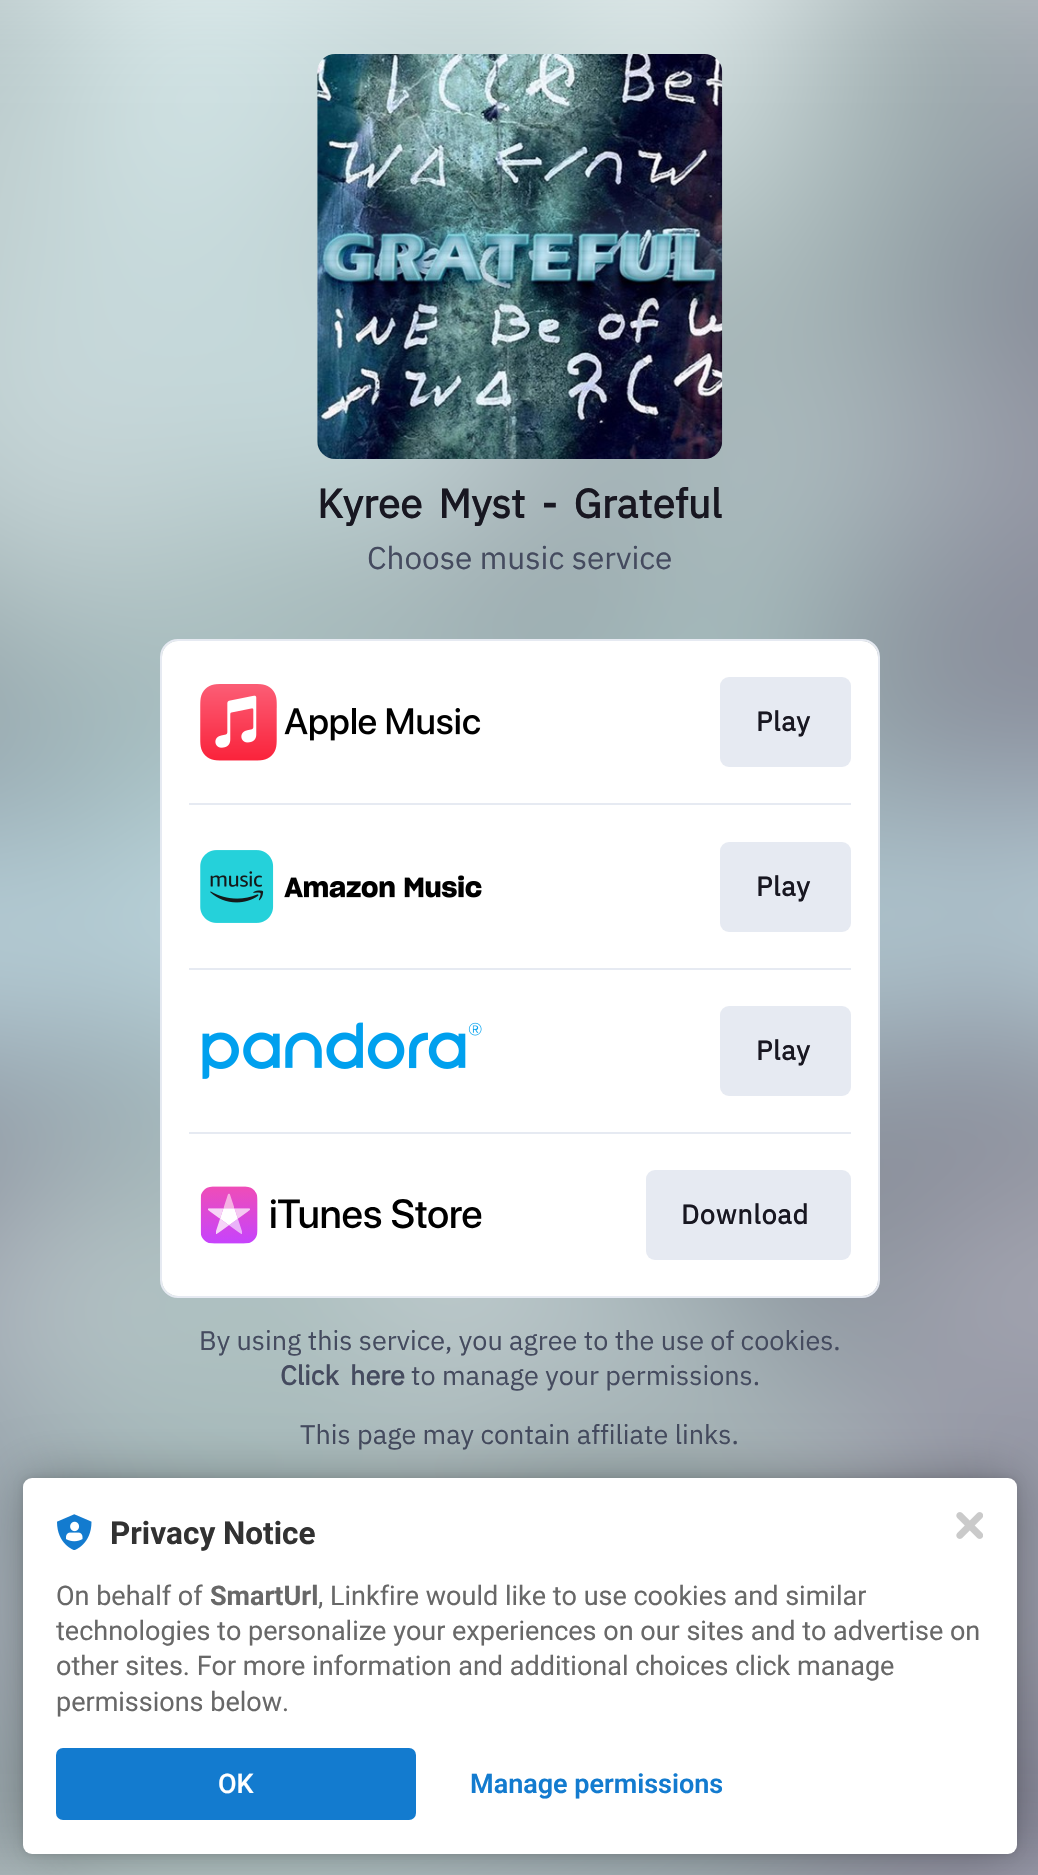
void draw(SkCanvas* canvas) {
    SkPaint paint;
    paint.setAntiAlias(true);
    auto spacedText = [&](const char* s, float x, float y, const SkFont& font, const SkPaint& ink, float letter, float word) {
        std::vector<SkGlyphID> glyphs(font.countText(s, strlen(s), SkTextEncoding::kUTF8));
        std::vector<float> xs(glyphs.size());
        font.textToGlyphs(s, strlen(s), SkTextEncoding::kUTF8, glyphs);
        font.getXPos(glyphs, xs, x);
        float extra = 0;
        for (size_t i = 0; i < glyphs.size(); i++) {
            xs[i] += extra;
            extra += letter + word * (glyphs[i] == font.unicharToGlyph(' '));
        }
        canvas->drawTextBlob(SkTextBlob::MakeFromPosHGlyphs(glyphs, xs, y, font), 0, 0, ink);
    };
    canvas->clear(0xFFFFFFFF);
    canvas->drawImageRect(SkImages::DeferredFromEncodedData(SkData::MakeFromFileName("img1.png")), SkRect::MakeXYWH(0, 0, 1038, 1875), SkSamplingOptions());
    canvas->drawImageRect(SkImages::DeferredFromEncodedData(SkData::MakeFromFileName("img2.png")), SkRect::MakeXYWH(317, 54, 406, 405), SkSamplingOptions());
    SkFont font1(fontMgr->matchFamilyStyle("IBM Plex Sans", SkFontStyle::Bold()), 40.5f);
    font1.setSubpixel(true);
    paint.setColor(0xFF181721);
    spacedText("Kyree Myst - Grateful", 317, 518, font1, paint, 0, 6.5f);
    SkFont font2(fontMgr->matchFamilyStyle("IBM Plex Sans", SkFontStyle::Normal()), 31.5f);
    font2.setSubpixel(true);
    paint.setColor(0xFF454B5F);
    canvas->drawString("Choose music service", 367, 569, font2, paint);
    paint.setStyle(SkPaint::kStroke_Style);
    paint.setStrokeWidth(2);
    paint.setColor(0xFFE6EAF2);
    canvas->drawRoundRect(SkRect::MakeXYWH(161, 640, 718, 657), 17, 17, paint);
    paint.setStyle(SkPaint::kFill_Style);
    paint.setColor(0xFFFFFFFF);
    canvas->drawRoundRect(SkRect::MakeXYWH(162, 641, 716, 655), 16, 16, paint);
    canvas->drawImageRect(SkImages::DeferredFromEncodedData(SkData::MakeFromFileName("img3.png")), SkRect::MakeXYWH(200, 684, 281, 77), SkSamplingOptions());
    paint.setColor(0xFFE6EAF2);
    canvas->drawRoundRect(SkRect::MakeXYWH(720, 677, 131, 90), 9, 9, paint);
    SkFont font3(fontMgr->matchFamilyStyle("IBM Plex Sans", SkFontStyle::Bold()), 27);
    font3.setSubpixel(true);
    paint.setColor(0xFF181721);
    spacedText("Play", 756, 731, font3, paint, 0.75f, 0);
    paint.setColor(0xFFE6EAF2);
    canvas->drawRect(SkRect::MakeXYWH(189, 803, 662, 2), paint);
    canvas->drawImageRect(SkImages::DeferredFromEncodedData(SkData::MakeFromFileName("img4.png")), SkRect::MakeXYWH(200, 850, 282, 73), SkSamplingOptions());
    canvas->drawRoundRect(SkRect::MakeXYWH(720, 842, 131, 90), 9, 9, paint);
    paint.setColor(0xFF181721);
    spacedText("Play", 756, 896, font3, paint, 0.75f, 0);
    paint.setColor(0xFFE6EAF2);
    canvas->drawRect(SkRect::MakeXYWH(189, 968, 662, 2), paint);
    canvas->drawImageRect(SkImages::DeferredFromEncodedData(SkData::MakeFromFileName("img5.png")), SkRect::MakeXYWH(202, 1022, 280, 57), SkSamplingOptions());
    canvas->drawRoundRect(SkRect::MakeXYWH(720, 1006, 131, 90), 9, 9, paint);
    paint.setColor(0xFF181721);
    spacedText("Play", 756, 1060, font3, paint, 0.75f, 0);
    paint.setColor(0xFFE6EAF2);
    canvas->drawRect(SkRect::MakeXYWH(189, 1132, 662, 2), paint);
    canvas->drawImageRect(SkImages::DeferredFromEncodedData(SkData::MakeFromFileName("img6.png")), SkRect::MakeXYWH(200, 1186, 282, 58), SkSamplingOptions());
    canvas->drawRoundRect(SkRect::MakeXYWH(646, 1170, 205, 90), 9, 9, paint);
    paint.setColor(0xFF181721);
    spacedText("Download", 681, 1224, font3, paint, 0.75f, 0);
    SkFont font4(fontMgr->matchFamilyStyle("IBM Plex Sans", SkFontStyle::Normal()), 27);
    font4.setSubpixel(true);
    paint.setColor(0xFF454B5F);
    canvas->drawString("By using this service, you agree to the use of cookies.", 199, 1350, font4, paint);
    spacedText("Click here", 280, 1385, font3, paint, 0, 5);
    canvas->drawString("to manage your permissions.", 411, 1385, font4, paint);
    canvas->drawString("This page may contain affiliate links.", 300, 1444, font4, paint);
    paint.setColor(0x1F000000);
    paint.setMaskFilter(SkMaskFilter::MakeBlur(kNormal_SkBlurStyle, 4.5f));
    canvas->drawRoundRect(SkRect::MakeXYWH(23, 1478, 994, 376), 9, 9, paint);
    paint.setMaskFilter(nullptr);
    paint.setColor(0x4D000000);
    paint.setMaskFilter(SkMaskFilter::MakeBlur(kNormal_SkBlurStyle, 27));
    canvas->drawRoundRect(SkRect::MakeXYWH(23, 1478, 994, 376), 9, 9, paint);
    paint.setMaskFilter(nullptr);
    paint.setColor(0xFFFFFFFF);
    canvas->drawRoundRect(SkRect::MakeXYWH(23, 1478, 994, 376), 9, 9, paint);
    canvas->drawImageRect(SkImages::DeferredFromEncodedData(SkData::MakeFromFileName("img7.png")), SkRect::MakeXYWH(956, 1512, 27, 27), SkSamplingOptions());
    canvas->drawImageRect(SkImages::DeferredFromEncodedData(SkData::MakeFromFileName("img8.png")), SkRect::MakeXYWH(57, 1514, 35, 36), SkSamplingOptions());
    SkFont font5(fontMgr->matchFamilyStyle("Roboto", SkFontStyle::Bold()), 31.5f);
    font5.setSubpixel(true);
    paint.setColor(0xFF323232);
    canvas->drawString("Privacy Notice", 110, 1544, font5, paint);
    SkFont font6(fontMgr->matchFamilyStyle("Roboto", SkFontStyle::Normal()), 27);
    font6.setSubpixel(true);
    paint.setColor(0xFF686868);
    canvas->drawString("On behalf of", 56, 1605, font6, paint);
    SkFont font7(fontMgr->matchFamilyStyle("Roboto", SkFontStyle::Bold()), 27);
    font7.setSubpixel(true);
    canvas->drawString("SmartUrl", 210, 1605, font7, paint);
    canvas->drawString(", Linkfire would like to use cookies and similar", 318, 1605, font6, paint);
    canvas->drawString("technologies to personalize your experiences on our sites and to advertise on", 56, 1640, font6, paint);
    canvas->drawString("other sites. For more information and additional choices click manage", 56, 1675, font6, paint);
    canvas->drawString("permissions below.", 56, 1711, font6, paint);
    paint.setColor(0xFF137BCF);
    canvas->drawRoundRect(SkRect::MakeXYWH(56, 1748, 360, 72), 7, 7, paint);
    SkFont font8(fontMgr->matchFamilyStyle("Roboto", SkFontStyle(500, SkFontStyle::kNormal_Width, SkFontStyle::kUpright_Slant)), 27);
    font8.setSubpixel(true);
    paint.setColor(0xFFFFFFFF);
    canvas->drawString("OK", 218, 1793, font8, paint);
    SkFont font9(fontMgr->matchFamilyStyle("Roboto", SkFontStyle(600, SkFontStyle::kNormal_Width, SkFontStyle::kUpright_Slant)), 27);
    font9.setSubpixel(true);
    paint.setColor(0xFF137BCF);
    canvas->drawString("Manage permissions", 470, 1793, font9, paint);
}
